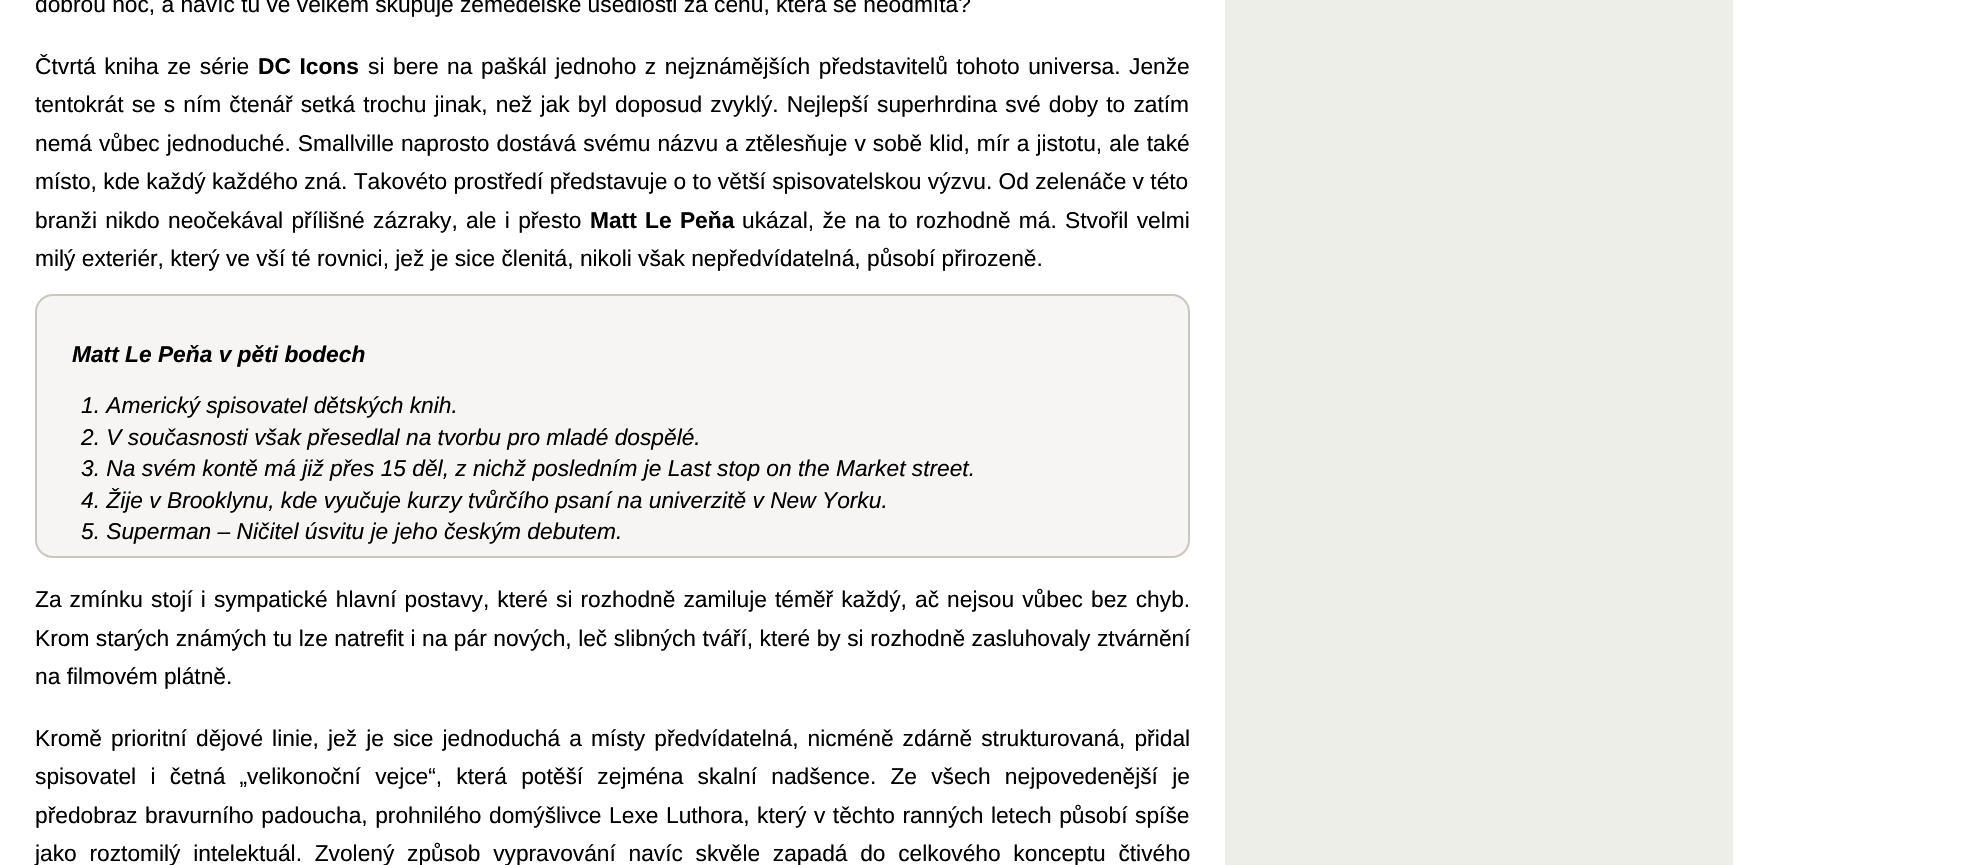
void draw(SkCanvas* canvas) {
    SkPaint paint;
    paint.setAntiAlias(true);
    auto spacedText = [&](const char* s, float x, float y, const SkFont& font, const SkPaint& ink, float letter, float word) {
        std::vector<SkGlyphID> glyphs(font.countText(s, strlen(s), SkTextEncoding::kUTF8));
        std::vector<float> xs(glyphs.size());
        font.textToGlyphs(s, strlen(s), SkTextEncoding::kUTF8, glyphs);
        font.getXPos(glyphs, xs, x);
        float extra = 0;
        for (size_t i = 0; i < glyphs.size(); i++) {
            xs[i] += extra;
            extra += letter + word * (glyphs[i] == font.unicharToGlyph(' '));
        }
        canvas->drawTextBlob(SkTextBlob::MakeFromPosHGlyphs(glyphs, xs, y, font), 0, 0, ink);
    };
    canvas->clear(0xFFFFFFFF);
    SkFont font1(fontMgr->matchFamilyStyle("Liberation Sans", SkFontStyle::Normal()), 22.75f);
    font1.setSubpixel(true);
    paint.setColor(0xFF000000);
    canvas->drawString("dobrou noc, a navíc tu ve velkém skupuje zemědělské usedlosti za cenu, která se neodmítá?", 35, 12, font1, paint);
    spacedText("Čtvrtá kniha ze série", 35, 74, font1, paint, 0, 2.25f);
    SkFont font2(fontMgr->matchFamilyStyle("Liberation Sans", SkFontStyle::Bold()), 22.75f);
    font2.setSubpixel(true);
    spacedText("DC Icons", 258, 74, font2, paint, 0, 2.25f);
    spacedText("si bere na paškál jednoho z nejznámějších představitelů tohoto universa. Jenže", 368, 74, font1, paint, 0, 2.25f);
    spacedText("tentokrát se s ním čtenář setká trochu jinak, než jak byl doposud zvyklý. Nejlepší superhrdina své doby to zatím", 35, 112, font1, paint, 0, 1.8f);
    spacedText("nemá vůbec jednoduché. Smallville naprosto dostává svému názvu a ztělesňuje v sobě klid, mír a jistotu, ale také", 35, 151, font1, paint, 0, 0.75f);
    canvas->drawString("místo, kde každý každého zná. Takovéto prostředí představuje o to větší spisovatelskou výzvu. Od zelenáče v této", 35, 189, font1, paint);
    spacedText("branži nikdo neočekával přílišné zázraky, ale i přesto", 35, 228, font1, paint, 0, 2);
    spacedText("Matt Le Peňa", 590, 228, font2, paint, 0, 2);
    spacedText("ukázal, že na to rozhodně má. Stvořil velmi", 742, 228, font1, paint, 0, 2);
    canvas->drawString("milý exteriér, který ve vší té rovnici, jež je sice členitá, nikoli však nepředvídatelná, působí přirozeně.", 35, 266, font1, paint);
    paint.setColor(0xFFF6F5F4);
    canvas->drawRoundRect(SkRect::MakeXYWH(36, 295, 1153, 262), 17, 17, paint);
    paint.setStyle(SkPaint::kStroke_Style);
    paint.setStrokeWidth(2);
    paint.setColor(0xFFCBC7BD);
    canvas->drawRoundRect(SkRect::MakeXYWH(36, 295, 1153, 262), 17, 17, paint);
    SkFont font3(fontMgr->matchFamilyStyle("Liberation Sans", SkFontStyle::BoldItalic()), 22.75f);
    font3.setSubpixel(true);
    paint.setStyle(SkPaint::kFill_Style);
    paint.setColor(0xFF000000);
    canvas->drawString("Matt Le Peňa v pěti bodech", 72, 362, font3, paint);
    SkFont font4(fontMgr->matchFamilyStyle("Liberation Sans", SkFontStyle::Italic()), 22.75f);
    font4.setSubpixel(true);
    canvas->drawString("1. Americký spisovatel dětských knih.", 81, 413, font4, paint);
    canvas->drawString("2. V současnosti však přesedlal na tvorbu pro mladé dospělé.", 81, 445, font4, paint);
    canvas->drawString("3. Na svém kontě má již přes 15 děl, z nichž posledním je Last stop on the Market street.", 81, 476, font4, paint);
    canvas->drawString("4. Žije v Brooklynu, kde vyučuje kurzy tvůrčího psaní na univerzitě v New Yorku.", 81, 508, font4, paint);
    canvas->drawString("5. Superman – Ničitel úsvitu je jeho českým debutem.", 81, 539, font4, paint);
    spacedText("Za zmínku stojí i sympatické hlavní postavy, které si rozhodně zamiluje téměř každý, ač nejsou vůbec bez chyb.", 35, 607, font1, paint, 0, 1.75f);
    spacedText("Krom starých známých tu lze natrefit i na pár nových, leč slibných tváří, které by si rozhodně zasluhovaly ztvárnění", 35, 646, font1, paint, 0, 0.2f);
    canvas->drawString("na filmovém plátně.", 35, 684, font1, paint);
    spacedText("Kromě prioritní dějové linie, jež je sice jednoduchá a místy předvídatelná, nicméně zdárně strukturovaná, přidal", 35, 746, font1, paint, 0, 2.75f);
    spacedText("spisovatel i četná „velikonoční vejce“, která potěší zejména skalní nadšence. Ze všech nejpovedenější je", 35, 784, font1, paint, 0, 7.9f);
    spacedText("předobraz bravurního padoucha, prohnilého domýšlivce Lexe Luthora, který v těchto ranných letech působí spíše", 35, 823, font1, paint, 0, 1.25f);
    spacedText("jako roztomilý intelektuál. Zvolený způsob vypravování navíc skvěle zapadá do celkového konceptu čtivého", 35, 861, font1, paint, 0, 6.4f);
    paint.setColor(0xFFEEEEE8);
    canvas->drawRect(SkRect::MakeXYWH(1225, 0, 508, 865), paint);
}
